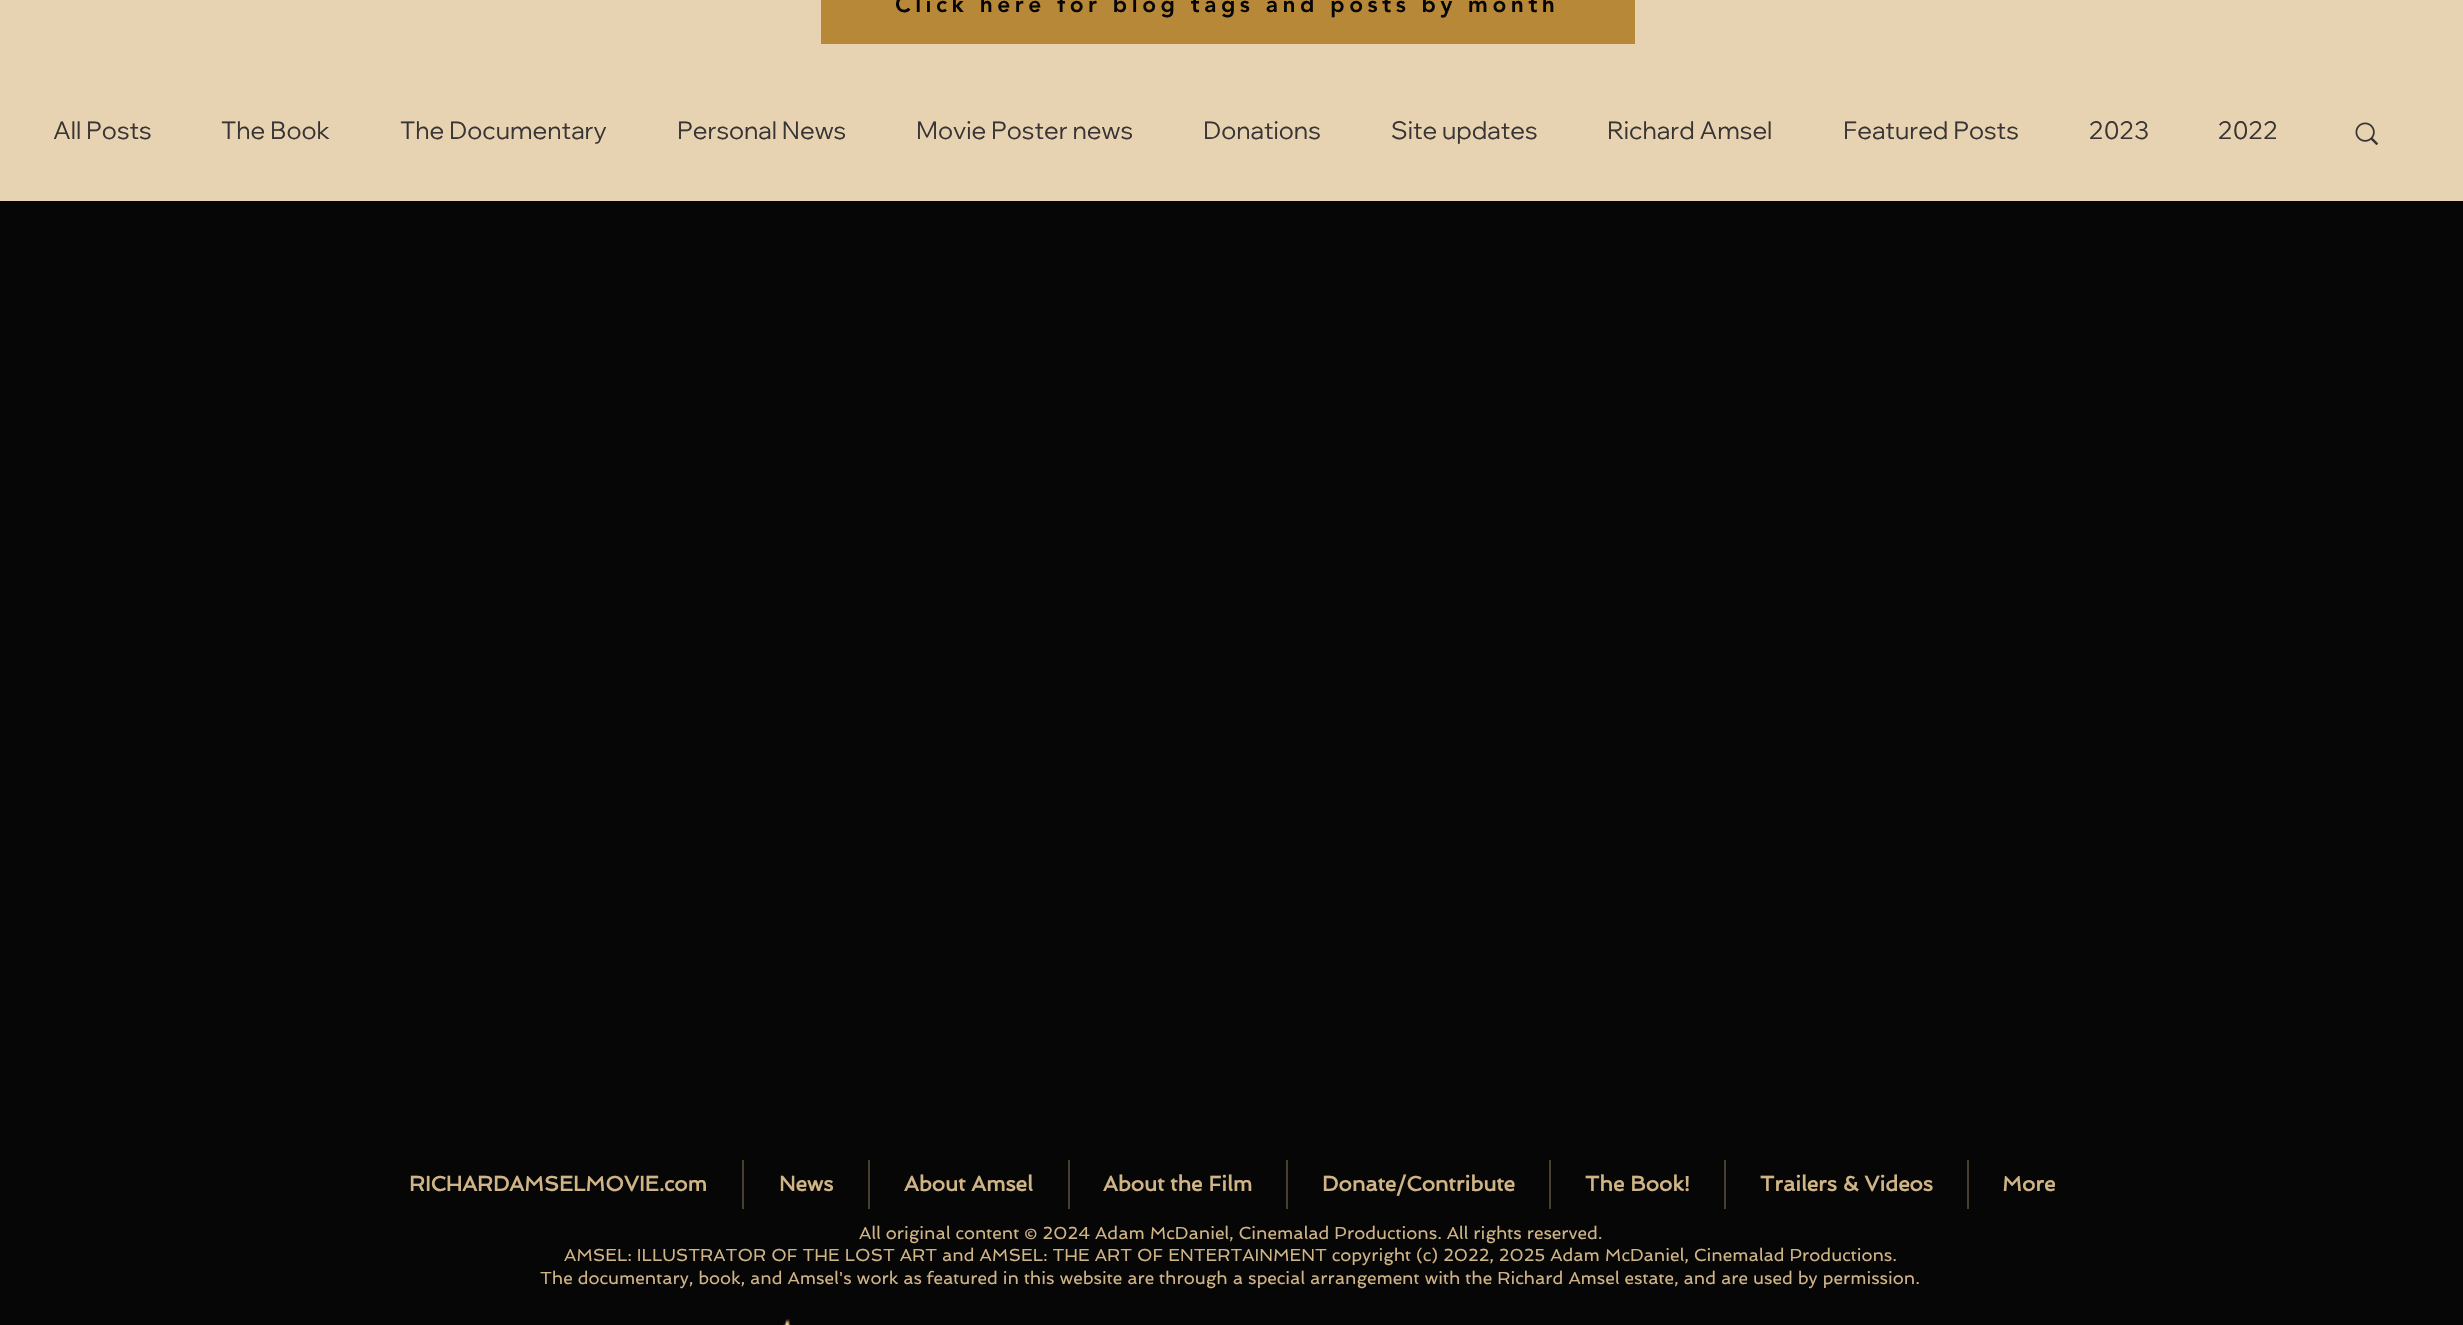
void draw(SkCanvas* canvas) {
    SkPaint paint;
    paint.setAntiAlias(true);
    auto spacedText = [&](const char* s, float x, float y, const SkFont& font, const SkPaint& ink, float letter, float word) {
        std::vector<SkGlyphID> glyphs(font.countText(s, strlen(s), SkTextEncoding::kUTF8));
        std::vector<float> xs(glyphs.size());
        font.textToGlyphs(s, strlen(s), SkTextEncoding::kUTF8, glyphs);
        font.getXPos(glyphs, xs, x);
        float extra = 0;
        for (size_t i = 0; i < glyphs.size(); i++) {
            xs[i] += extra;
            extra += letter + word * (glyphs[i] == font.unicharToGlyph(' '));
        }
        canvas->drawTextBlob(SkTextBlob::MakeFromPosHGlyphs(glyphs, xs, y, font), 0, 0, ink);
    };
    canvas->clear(0xFFE7D3B1);
    paint.setColor(0xFFB78837);
    canvas->drawRect(SkRect::MakeXYWH(821, 0, 814, 44), paint);
    SkFont font1(fontMgr->matchFamilyStyle("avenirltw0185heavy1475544", SkFontStyle(900, SkFontStyle::kNormal_Width, SkFontStyle::kUpright_Slant)), 22.75f);
    font1.setSubpixel(true);
    paint.setColor(0xFF070606);
    spacedText("Click here for blog tags and posts by month", 895, 12, font1, paint, 4.55f, 0);
    canvas->drawRect(SkRect::MakeXYWH(0, 201, 2463, 1124), paint);
    SkFont font2(fontMgr->matchFamilyStyle("Wix Madefor Display", SkFontStyle::Normal()), 24.5f);
    font2.setSubpixel(true);
    paint.setColor(0xFF393535);
    canvas->drawString("All Posts", 53, 139, font2, paint);
    canvas->drawString("The Book", 221, 139, font2, paint);
    canvas->drawString("The Documentary", 400, 139, font2, paint);
    canvas->drawString("Personal News", 677, 139, font2, paint);
    canvas->drawString("Movie Poster news", 916, 139, font2, paint);
    canvas->drawString("Donations", 1203, 139, font2, paint);
    canvas->drawString("Site updates", 1391, 139, font2, paint);
    canvas->drawString("Richard Amsel", 1607, 139, font2, paint);
    canvas->drawString("Featured Posts", 1843, 139, font2, paint);
    canvas->drawString("2023", 2089, 139, font2, paint);
    canvas->drawString("2022", 2218, 139, font2, paint);
    canvas->drawImageRect(SkImages::DeferredFromEncodedData(SkData::MakeFromFileName("img1.png")), SkRect::MakeXYWH(2355, 122, 24, 24), SkSamplingOptions());
    SkFont font3(fontMgr->matchFamilyStyle("Spinnaker", SkFontStyle::Bold()), 21);
    font3.setSubpixel(true);
    paint.setColor(0xFFCFB486);
    canvas->drawString("RICHARDAMSELMOVIE.com", 409, 1191, font3, paint);
    paint.setColor(0xFF493F30);
    canvas->drawRect(SkRect::MakeXYWH(742, 1160, 2, 49), paint);
    paint.setColor(0xFFCFB486);
    canvas->drawString("News", 779, 1191, font3, paint);
    paint.setColor(0xFF493F30);
    canvas->drawRect(SkRect::MakeXYWH(868, 1160, 2, 49), paint);
    paint.setColor(0xFFCFB486);
    canvas->drawString("About Amsel", 904, 1191, font3, paint);
    paint.setColor(0xFF493F30);
    canvas->drawRect(SkRect::MakeXYWH(1068, 1160, 2, 49), paint);
    paint.setColor(0xFFCFB486);
    canvas->drawString("About the Film", 1103, 1191, font3, paint);
    paint.setColor(0xFF493F30);
    canvas->drawRect(SkRect::MakeXYWH(1286, 1160, 2, 49), paint);
    paint.setColor(0xFFCFB486);
    canvas->drawString("Donate/Contribute", 1322, 1191, font3, paint);
    paint.setColor(0xFF493F30);
    canvas->drawRect(SkRect::MakeXYWH(1549, 1160, 2, 49), paint);
    paint.setColor(0xFFCFB486);
    canvas->drawString("The Book!", 1585, 1191, font3, paint);
    paint.setColor(0xFF493F30);
    canvas->drawRect(SkRect::MakeXYWH(1724, 1160, 2, 49), paint);
    paint.setColor(0xFFCFB486);
    canvas->drawString("Trailers & Videos", 1760, 1191, font3, paint);
    paint.setColor(0xFF493F30);
    canvas->drawRect(SkRect::MakeXYWH(1967, 1160, 2, 49), paint);
    paint.setColor(0xFFCFB486);
    canvas->drawString("More", 2002, 1191, font3, paint);
    SkFont font4(fontMgr->matchFamilyStyle("Spinnaker", SkFontStyle::Normal()), 17.5f);
    font4.setSubpixel(true);
    canvas->drawString("All original content © 2024 Adam McDaniel, Cinemalad Productions. All rights reserved.", 859, 1239, font4, paint);
    canvas->drawString("AMSEL: ILLUSTRATOR OF THE LOST ART and AMSEL: THE ART OF ENTERTAINMENT copyright (c) 2022, 2025 Adam McDaniel, Cinemalad Productions.", 564, 1261, font4, paint);
    canvas->drawString("The documentary, book, and Amsel's work as featured in this website are through a special arrangement with the Richard Amsel estate, and are used by permission.", 540, 1284, font4, paint);
    canvas->drawImageRect(SkImages::DeferredFromEncodedData(SkData::MakeFromFileName("img2.png")), SkRect::MakeXYWH(783, 1319, 8, 6), SkSamplingOptions());
}
